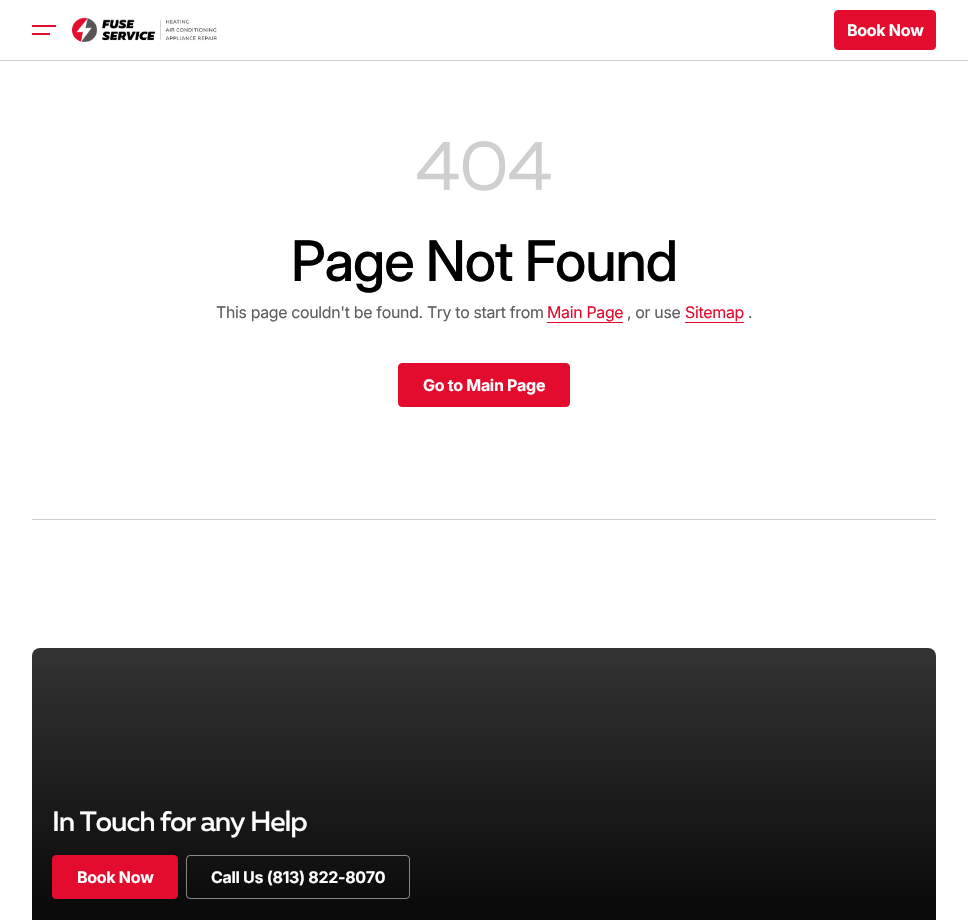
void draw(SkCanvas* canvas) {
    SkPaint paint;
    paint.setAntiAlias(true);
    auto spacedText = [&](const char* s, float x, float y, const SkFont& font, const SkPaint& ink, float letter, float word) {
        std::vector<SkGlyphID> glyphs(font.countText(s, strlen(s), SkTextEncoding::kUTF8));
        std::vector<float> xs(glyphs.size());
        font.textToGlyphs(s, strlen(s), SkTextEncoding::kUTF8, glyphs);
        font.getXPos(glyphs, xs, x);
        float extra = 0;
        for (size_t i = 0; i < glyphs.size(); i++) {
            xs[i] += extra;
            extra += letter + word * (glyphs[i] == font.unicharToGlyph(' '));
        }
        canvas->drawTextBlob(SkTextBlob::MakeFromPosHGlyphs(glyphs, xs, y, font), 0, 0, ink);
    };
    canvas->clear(0xFFFFFFFF);
    paint.setColor(0xFFCFCFCF);
    canvas->drawRect(SkRect::MakeXYWH(0, 60, 968, 1), paint);
    paint.setColor(0xFFE30B2E);
    canvas->drawRect(SkRect::MakeXYWH(32, 25, 24, 2), paint);
    canvas->drawRect(SkRect::MakeXYWH(32, 33, 18, 2), paint);
    canvas->drawImageRect(SkImages::DeferredFromEncodedData(SkData::MakeFromFileName("img1.png")), SkRect::MakeXYWH(72, 17, 145, 25), SkSamplingOptions());
    canvas->drawRoundRect(SkRect::MakeXYWH(834.5f, 10.5f, 101, 39), 3.5f, 3.5f, paint);
    paint.setStyle(SkPaint::kStroke_Style);
    paint.setStrokeWidth(1);
    canvas->drawRoundRect(SkRect::MakeXYWH(834.5f, 10.5f, 101, 39), 3.5f, 3.5f, paint);
    SkFont font1(fontMgr->matchFamilyStyle("Inter", SkFontStyle::Bold()), 16);
    font1.setSubpixel(true);
    paint.setStyle(SkPaint::kFill_Style);
    paint.setColor(0xFFFFFFFF);
    spacedText("Book Now", 847, 36, font1, paint, -0.3f, 0);
    paint.setColor(0xFFCFCFCF);
    canvas->drawRect(SkRect::MakeXYWH(32, 519, 904, 1), paint);
    canvas->drawImageRect(SkImages::DeferredFromEncodedData(SkData::MakeFromFileName("img2.png")), SkRect::MakeXYWH(417, 141, 134, 50), SkSamplingOptions());
    SkFont font2(fontMgr->matchFamilyStyle("Inter", SkFontStyle(500, SkFontStyle::kNormal_Width, SkFontStyle::kUpright_Slant)), 56);
    font2.setSubpixel(true);
    paint.setColor(0xFF000000);
    spacedText("Page Not Found", 291, 281, font2, paint, -1.1f, 0);
    SkFont font3(fontMgr->matchFamilyStyle("Inter", SkFontStyle::Normal()), 16);
    font3.setSubpixel(true);
    paint.setColor(0xFF5D5D5D);
    spacedText("This page couldn't be found. Try to start from", 216, 318, font3, paint, -0.3f, 0);
    paint.setColor(0xFFE30B2E);
    spacedText("Main Page", 547, 318, font3, paint, -0.3f, 0);
    canvas->drawRect(SkRect::MakeXYWH(547, 322, 76, 1), paint);
    paint.setColor(0xFF5D5D5D);
    spacedText(", or use", 627, 318, font3, paint, -0.3f, 0);
    paint.setColor(0xFFE30B2E);
    spacedText("Sitemap", 685, 318, font3, paint, -0.3f, 0);
    canvas->drawRect(SkRect::MakeXYWH(685, 322, 59, 1), paint);
    paint.setColor(0xFF5D5D5D);
    spacedText(".", 748, 318, font3, paint, -0.3f, 0);
    paint.setColor(0xFFE30B2E);
    canvas->drawRoundRect(SkRect::MakeXYWH(398.5f, 363.5f, 171, 43), 3.5f, 3.5f, paint);
    paint.setStyle(SkPaint::kStroke_Style);
    canvas->drawRoundRect(SkRect::MakeXYWH(398.5f, 363.5f, 171, 43), 3.5f, 3.5f, paint);
    paint.setStyle(SkPaint::kFill_Style);
    paint.setColor(0xFFFFFFFF);
    spacedText("Go to Main Page", 423, 391, font1, paint, -0.3f, 0);
    paint.setColor(0xFF333333);
    canvas->drawRoundRect(SkRect::MakeXYWH(32, 648, 904, 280), 8, 8, paint);
    {
        const SkColor colors[] = {0x00000000, 0xE6000000};
        const float stops[] = {0, 1};
        const SkPoint ends[] = {{484, 648}, {484, 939}};
        paint.setShader(SkGradientShader::MakeLinear(ends, colors, stops, 2, SkTileMode::kClamp));
        paint.setAlpha(255);
    }
    canvas->drawRect(SkRect::MakeXYWH(32, 665, 904, 255), paint);
    SkFont font4(fontMgr->matchFamilyStyle("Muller", SkFontStyle(500, SkFontStyle::kNormal_Width, SkFontStyle::kUpright_Slant)), 28);
    font4.setSubpixel(true);
    paint.setShader(nullptr);
    paint.setColor(0xFFFFFFFF);
    spacedText("In Touch for any Help", 52, 831, font4, paint, -1.1f, 0);
    paint.setColor(0xFFE30B2E);
    canvas->drawRoundRect(SkRect::MakeXYWH(52.5f, 855.5f, 125, 43), 3.5f, 3.5f, paint);
    paint.setStyle(SkPaint::kStroke_Style);
    canvas->drawRoundRect(SkRect::MakeXYWH(52.5f, 855.5f, 125, 43), 3.5f, 3.5f, paint);
    paint.setStyle(SkPaint::kFill_Style);
    paint.setColor(0xFFFFFFFF);
    spacedText("Book Now", 77, 883, font1, paint, -0.3f, 0);
    paint.setStyle(SkPaint::kStroke_Style);
    paint.setColor(0x80FFFFFF);
    canvas->drawRoundRect(SkRect::MakeXYWH(186.5f, 855.5f, 223, 43), 3.5f, 3.5f, paint);
    paint.setStyle(SkPaint::kFill_Style);
    paint.setColor(0xFFFFFFFF);
    spacedText("Call Us (813) 822-8070", 211, 883, font1, paint, -0.3f, 0);
}
